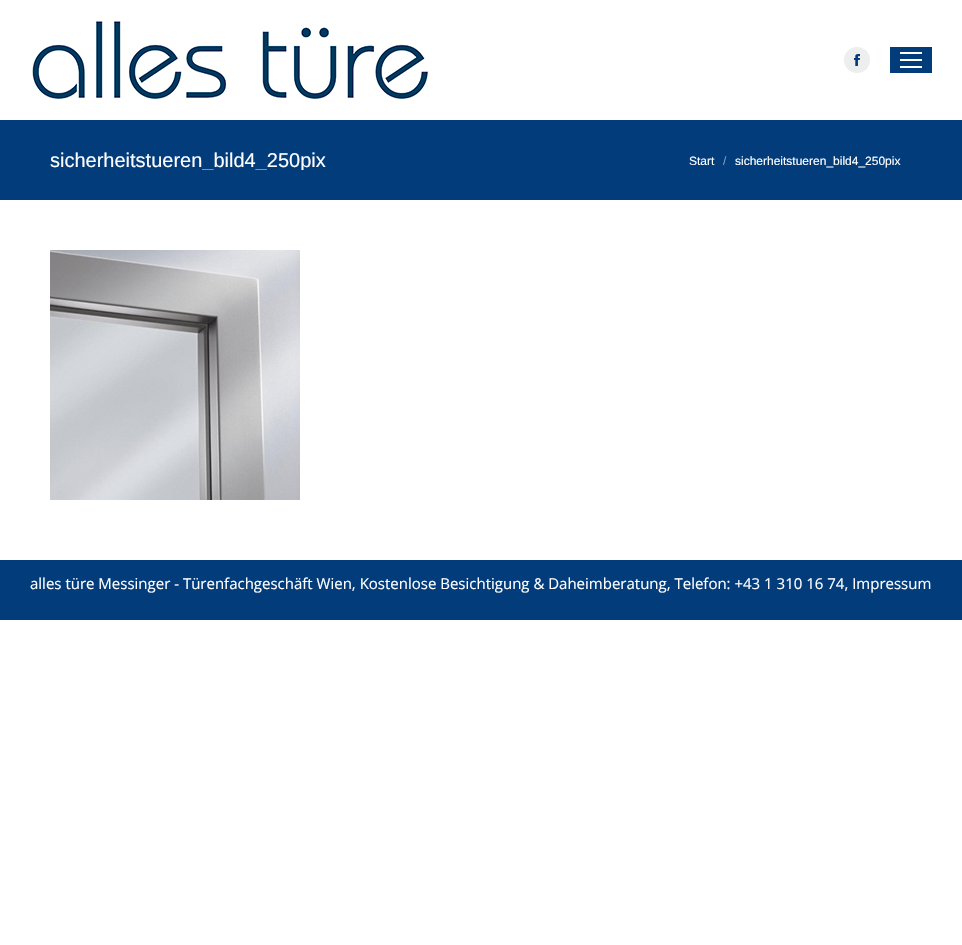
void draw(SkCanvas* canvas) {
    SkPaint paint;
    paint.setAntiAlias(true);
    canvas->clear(0xFFFFFFFF);
    canvas->drawImageRect(SkImages::DeferredFromEncodedData(SkData::MakeFromFileName("img1.png")), SkRect::MakeXYWH(32, 21, 398, 79), SkSamplingOptions());
    paint.setColor(0xFFEDEEEE);
    canvas->drawCircle(857, 60, 13, paint);
    canvas->drawImageRect(SkImages::DeferredFromEncodedData(SkData::MakeFromFileName("img2.png")), SkRect::MakeXYWH(854, 54, 6, 12), SkSamplingOptions());
    paint.setColor(0xFF033C7B);
    canvas->drawRect(SkRect::MakeXYWH(890, 47, 42, 26), paint);
    paint.setColor(0xFFFFFFFF);
    canvas->drawRect(SkRect::MakeXYWH(900, 52, 22, 2), paint);
    canvas->drawRect(SkRect::MakeXYWH(900, 59, 22, 2), paint);
    canvas->drawRect(SkRect::MakeXYWH(900, 66, 22, 2), paint);
    paint.setColor(0xFF033C7B);
    canvas->drawRect(SkRect::MakeXYWH(0, 120, 962, 80), paint);
    canvas->save();
    canvas->clipRect(SkRect::MakeXYWH(50, 150, 276, 20));
    SkFont font1(fontMgr->matchFamilyStyle("Liberation Sans", SkFontStyle::Normal()), 20);
    font1.setSubpixel(true);
    paint.setColor(0xFFFFFFFF);
    canvas->drawString("sicherheitstueren_bild4_250pix", 50, 167, font1, paint);
    canvas->restore();
    SkFont font2(fontMgr->matchFamilyStyle("Liberation Sans", SkFontStyle::Normal()), 12);
    font2.setSubpixel(true);
    canvas->drawString("Start", 689, 165, font2, paint);
    paint.setColor(0xFF819EBD);
    canvas->drawString("/", 723, 165, font2, paint);
    paint.setColor(0xFFFFFFFF);
    canvas->drawString("sicherheitstueren_bild4_250pix", 735, 165, font2, paint);
    canvas->drawImageRect(SkImages::DeferredFromEncodedData(SkData::MakeFromFileName("img3.png")), SkRect::MakeXYWH(50, 250, 250, 250), SkSamplingOptions());
    paint.setColor(0xFF033C7B);
    canvas->drawRect(SkRect::MakeXYWH(0, 560, 962, 60), paint);
    SkFont font3(fontMgr->matchFamilyStyle("Open Sans", SkFontStyle::Normal()), 15);
    font3.setSubpixel(true);
    paint.setColor(0xFFFFFFFF);
    canvas->drawString("alles türe Messinger - Türenfachgeschäft Wien, Kostenlose Besichtigung & Daheimberatung, Telefon: +43 1 310 16 74, Impressum", 30, 589, font3, paint);
}
